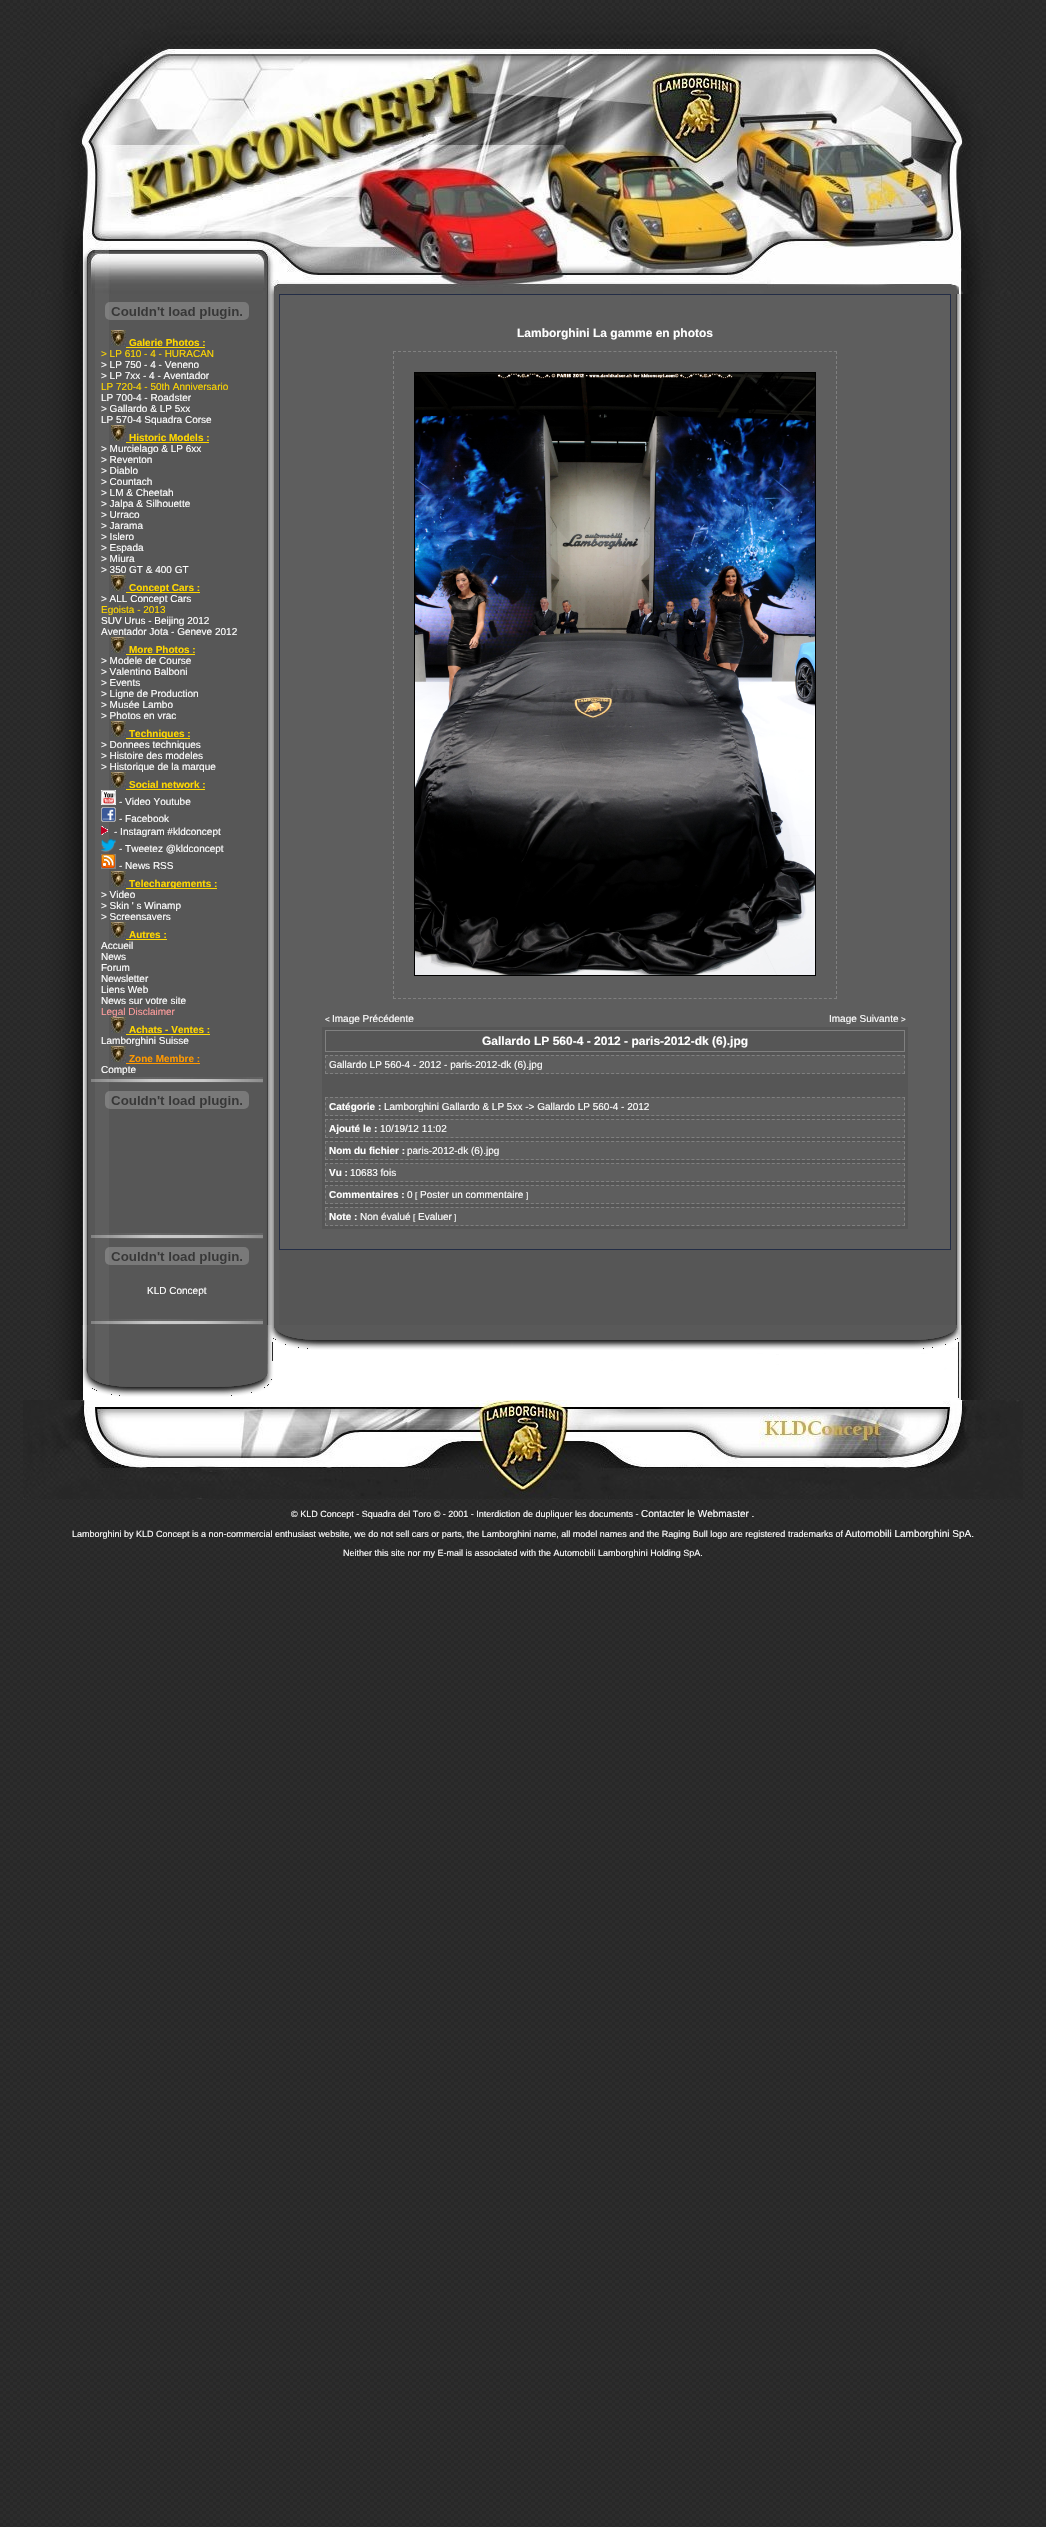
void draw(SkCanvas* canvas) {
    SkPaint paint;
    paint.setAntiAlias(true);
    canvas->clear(0xFFFFFFFF);
    canvas->drawImageRect(SkImages::DeferredFromEncodedData(SkData::MakeFromFileName("img1.png")), SkRect::MakeXYWH(0, 0, 1046, 2527), SkSamplingOptions());
    canvas->drawImageRect(SkImages::DeferredFromEncodedData(SkData::MakeFromFileName("img2.png")), SkRect::MakeXYWH(23, 8, 1000, 286), SkSamplingOptions());
    canvas->drawImageRect(SkImages::DeferredFromEncodedData(SkData::MakeFromFileName("img3.png")), SkRect::MakeXYWH(46, 294, 43, 1031), SkSamplingOptions());
    canvas->drawImageRect(SkImages::DeferredFromEncodedData(SkData::MakeFromFileName("img4.png")), SkRect::MakeXYWH(89, 294, 176, 1031), SkSamplingOptions());
    canvas->drawImageRect(SkImages::DeferredFromEncodedData(SkData::MakeFromFileName("img5.png")), SkRect::MakeXYWH(105, 302, 144, 18), SkSamplingOptions());
    canvas->drawImageRect(SkImages::DeferredFromEncodedData(SkData::MakeFromFileName("img6.png")), SkRect::MakeXYWH(111, 330, 15, 16), SkSamplingOptions());
    SkFont font1(fontMgr->matchFamilyStyle("Liberation Sans", SkFontStyle::Bold()), 10);
    font1.setSubpixel(true);
    paint.setColor(0xFFFFD700);
    canvas->drawString("Galerie Photos :", 129, 346, font1, paint);
    canvas->drawRect(SkRect::MakeXYWH(126, 347, 79, 1), paint);
    SkFont font2(fontMgr->matchFamilyStyle("Liberation Sans", SkFontStyle::Normal()), 10);
    font2.setSubpixel(true);
    canvas->drawString("> LP 610 - 4 - HURACAN", 101, 357, font2, paint);
    paint.setColor(0xFFFFFFFF);
    canvas->drawString("> LP 750 - 4 - Veneno", 101, 368, font2, paint);
    canvas->drawString("> LP 7xx - 4 - Aventador", 101, 379, font2, paint);
    paint.setColor(0xFFFFD700);
    canvas->drawString("LP 720-4 - 50th Anniversario", 101, 390, font2, paint);
    paint.setColor(0xFFFFFFFF);
    canvas->drawString("LP 700-4 - Roadster", 101, 401, font2, paint);
    canvas->drawString("> Gallardo & LP 5xx", 101, 412, font2, paint);
    canvas->drawString("LP 570-4 Squadra Corse", 101, 423, font2, paint);
    canvas->drawImageRect(SkImages::DeferredFromEncodedData(SkData::MakeFromFileName("img6.png")), SkRect::MakeXYWH(111, 425, 15, 16), SkSamplingOptions());
    paint.setColor(0xFFFFD700);
    canvas->drawString("Historic Models :", 129, 441, font1, paint);
    canvas->drawRect(SkRect::MakeXYWH(126, 442, 83, 1), paint);
    paint.setColor(0xFFFFFFFF);
    canvas->drawString("> Murcielago & LP 6xx", 101, 452, font2, paint);
    canvas->drawString("> Reventon", 101, 463, font2, paint);
    canvas->drawString("> Diablo", 101, 474, font2, paint);
    canvas->drawString("> Countach", 101, 485, font2, paint);
    canvas->drawString("> LM & Cheetah", 101, 496, font2, paint);
    canvas->drawString("> Jalpa & Silhouette", 101, 507, font2, paint);
    canvas->drawString("> Urraco", 101, 518, font2, paint);
    canvas->drawString("> Jarama", 101, 529, font2, paint);
    canvas->drawString("> Islero", 101, 540, font2, paint);
    canvas->drawString("> Espada", 101, 551, font2, paint);
    canvas->drawString("> Miura", 101, 562, font2, paint);
    canvas->drawString("> 350 GT & 400 GT", 101, 573, font2, paint);
    canvas->drawImageRect(SkImages::DeferredFromEncodedData(SkData::MakeFromFileName("img6.png")), SkRect::MakeXYWH(111, 575, 15, 16), SkSamplingOptions());
    paint.setColor(0xFFFFD700);
    canvas->drawRect(SkRect::MakeXYWH(126, 592, 74, 1), paint);
    canvas->drawString("Concept Cars :", 129, 591, font1, paint);
    paint.setColor(0xFFFFFFFF);
    canvas->drawString("> ALL Concept Cars", 101, 602, font2, paint);
    paint.setColor(0xFFFFD700);
    canvas->drawString("Egoista - 2013", 101, 613, font2, paint);
    paint.setColor(0xFFFFFFFF);
    canvas->drawString("SUV Urus - Beijing 2012", 101, 624, font2, paint);
    canvas->drawString("Aventador Jota - Geneve 2012", 101, 635, font2, paint);
    canvas->drawImageRect(SkImages::DeferredFromEncodedData(SkData::MakeFromFileName("img6.png")), SkRect::MakeXYWH(111, 637, 15, 16), SkSamplingOptions());
    paint.setColor(0xFFFFD700);
    canvas->drawString("More Photos :", 129, 653, font1, paint);
    canvas->drawRect(SkRect::MakeXYWH(126, 654, 69, 1), paint);
    paint.setColor(0xFFFFFFFF);
    canvas->drawString("> Modele de Course", 101, 664, font2, paint);
    canvas->drawString("> Valentino Balboni", 101, 675, font2, paint);
    canvas->drawString("> Events", 101, 686, font2, paint);
    canvas->drawString("> Ligne de Production", 101, 697, font2, paint);
    canvas->drawString("> Musée Lambo", 101, 708, font2, paint);
    canvas->drawString("> Photos en vrac", 101, 719, font2, paint);
    canvas->drawImageRect(SkImages::DeferredFromEncodedData(SkData::MakeFromFileName("img6.png")), SkRect::MakeXYWH(111, 721, 15, 16), SkSamplingOptions());
    paint.setColor(0xFFFFD700);
    canvas->drawRect(SkRect::MakeXYWH(126, 738, 64, 1), paint);
    canvas->drawString("Techniques :", 129, 737, font1, paint);
    paint.setColor(0xFFFFFFFF);
    canvas->drawString("> Donnees techniques", 101, 748, font2, paint);
    canvas->drawString("> Histoire des modeles", 101, 759, font2, paint);
    canvas->drawString("> Historique de la marque", 101, 770, font2, paint);
    canvas->drawImageRect(SkImages::DeferredFromEncodedData(SkData::MakeFromFileName("img6.png")), SkRect::MakeXYWH(111, 772, 15, 16), SkSamplingOptions());
    paint.setColor(0xFFFFD700);
    canvas->drawString("Social network :", 129, 788, font1, paint);
    canvas->drawRect(SkRect::MakeXYWH(126, 789, 79, 1), paint);
    canvas->drawImageRect(SkImages::DeferredFromEncodedData(SkData::MakeFromFileName("img7.png")), SkRect::MakeXYWH(101, 790, 15, 15), SkSamplingOptions());
    paint.setColor(0xFFFFFFFF);
    canvas->drawString("- Video Youtube", 119, 805, font2, paint);
    canvas->drawImageRect(SkImages::DeferredFromEncodedData(SkData::MakeFromFileName("img8.png")), SkRect::MakeXYWH(101, 807, 15, 15), SkSamplingOptions());
    canvas->drawString("- Facebook", 119, 822, font2, paint);
    canvas->drawImageRect(SkImages::DeferredFromEncodedData(SkData::MakeFromFileName("img9.png")), SkRect::MakeXYWH(101, 826, 7, 9), SkSamplingOptions());
    canvas->drawString("- Instagram #kldconcept", 114, 835, font2, paint);
    canvas->drawImageRect(SkImages::DeferredFromEncodedData(SkData::MakeFromFileName("img10.png")), SkRect::MakeXYWH(101, 838, 15, 14), SkSamplingOptions());
    canvas->drawString("- Tweetez @kldconcept", 119, 852, font2, paint);
    canvas->drawImageRect(SkImages::DeferredFromEncodedData(SkData::MakeFromFileName("img11.png")), SkRect::MakeXYWH(101, 854, 15, 15), SkSamplingOptions());
    canvas->drawString("- News RSS", 119, 869, font2, paint);
    canvas->drawImageRect(SkImages::DeferredFromEncodedData(SkData::MakeFromFileName("img6.png")), SkRect::MakeXYWH(111, 871, 15, 16), SkSamplingOptions());
    paint.setColor(0xFFFFD700);
    canvas->drawRect(SkRect::MakeXYWH(126, 888, 91, 1), paint);
    canvas->drawString("Telechargements :", 129, 887, font1, paint);
    paint.setColor(0xFFFFFFFF);
    canvas->drawString("> Video", 101, 898, font2, paint);
    canvas->drawString("> Skin ' s Winamp", 101, 909, font2, paint);
    canvas->drawString("> Screensavers", 101, 920, font2, paint);
    canvas->drawImageRect(SkImages::DeferredFromEncodedData(SkData::MakeFromFileName("img6.png")), SkRect::MakeXYWH(111, 922, 15, 16), SkSamplingOptions());
    paint.setColor(0xFFFFD700);
    canvas->drawString("Autres :", 129, 938, font1, paint);
    canvas->drawRect(SkRect::MakeXYWH(126, 939, 41, 1), paint);
    paint.setColor(0xFFFFFFFF);
    canvas->drawString("Accueil", 101, 949, font2, paint);
    canvas->drawString("News", 101, 960, font2, paint);
    canvas->drawString("Forum", 101, 971, font2, paint);
    canvas->drawString("Newsletter", 101, 982, font2, paint);
    canvas->drawString("Liens Web", 101, 993, font2, paint);
    canvas->drawString("News sur votre site", 101, 1004, font2, paint);
    paint.setColor(0xFFFF9D9D);
    canvas->drawString("Legal Disclaimer", 101, 1015, font2, paint);
    canvas->drawImageRect(SkImages::DeferredFromEncodedData(SkData::MakeFromFileName("img6.png")), SkRect::MakeXYWH(111, 1017, 15, 16), SkSamplingOptions());
    paint.setColor(0xFFFFD700);
    canvas->drawString("Achats - Ventes :", 129, 1033, font1, paint);
    canvas->drawRect(SkRect::MakeXYWH(126, 1034, 84, 1), paint);
    paint.setColor(0xFFFFFFFF);
    canvas->drawString("Lamborghini Suisse", 101, 1044, font2, paint);
    canvas->drawImageRect(SkImages::DeferredFromEncodedData(SkData::MakeFromFileName("img6.png")), SkRect::MakeXYWH(111, 1046, 15, 16), SkSamplingOptions());
    paint.setColor(0xFFFF9900);
    canvas->drawString("Zone Membre :", 129, 1062, font1, paint);
    canvas->drawRect(SkRect::MakeXYWH(126, 1063, 74, 1), paint);
    paint.setColor(0xFFFFFFFF);
    canvas->drawString("Compte", 101, 1073, font2, paint);
    canvas->drawImageRect(SkImages::DeferredFromEncodedData(SkData::MakeFromFileName("img12.png")), SkRect::MakeXYWH(91, 1077, 172, 6), SkSamplingOptions());
    canvas->drawImageRect(SkImages::DeferredFromEncodedData(SkData::MakeFromFileName("img5.png")), SkRect::MakeXYWH(105, 1091, 144, 18), SkSamplingOptions());
    canvas->drawImageRect(SkImages::DeferredFromEncodedData(SkData::MakeFromFileName("img12.png")), SkRect::MakeXYWH(91, 1233, 172, 6), SkSamplingOptions());
    canvas->drawImageRect(SkImages::DeferredFromEncodedData(SkData::MakeFromFileName("img5.png")), SkRect::MakeXYWH(105, 1247, 144, 18), SkSamplingOptions());
    canvas->drawString("KLD Concept", 147, 1294, font2, paint);
    canvas->drawImageRect(SkImages::DeferredFromEncodedData(SkData::MakeFromFileName("img12.png")), SkRect::MakeXYWH(91, 1319, 172, 6), SkSamplingOptions());
    canvas->drawImageRect(SkImages::DeferredFromEncodedData(SkData::MakeFromFileName("img13.png")), SkRect::MakeXYWH(265, 294, 14, 1031), SkSamplingOptions());
    paint.setColor(0xFF565656);
    canvas->drawRect(SkRect::MakeXYWH(279, 1250, 672, 75), paint);
    paint.setColor(0xFF232D46);
    canvas->drawRect(SkRect::MakeXYWH(279, 294, 672, 956), paint);
    paint.setColor(0xFF5E5E5E);
    canvas->drawRect(SkRect::MakeXYWH(280, 295, 670, 954), paint);
    SkFont font3(fontMgr->matchFamilyStyle("Liberation Sans", SkFontStyle::Bold()), 12);
    font3.setSubpixel(true);
    paint.setColor(0xFFFFFFFF);
    canvas->drawString("Lamborghini La gamme en photos", 517, 337, font3, paint);
    paint.setStyle(SkPaint::kStroke_Style);
    paint.setStrokeWidth(1);
    paint.setColor(0xFF808080);
    paint.setPathEffect(SkDashPathEffect::Make({{3, 2.01f}}, 0));
    canvas->drawPath(SkPathBuilder().moveTo(393, 351.5f).lineTo(837, 351.5f).detach(), paint);
    paint.setPathEffect(nullptr);
    paint.setPathEffect(SkDashPathEffect::Make({{3, 2}}, 0));
    canvas->drawPath(SkPathBuilder().moveTo(836.5f, 351).lineTo(836.5f, 999).detach(), paint);
    paint.setPathEffect(nullptr);
    paint.setPathEffect(SkDashPathEffect::Make({{3, 2.01f}}, 0));
    canvas->drawPath(SkPathBuilder().moveTo(393, 998.5f).lineTo(837, 998.5f).detach(), paint);
    paint.setPathEffect(nullptr);
    paint.setPathEffect(SkDashPathEffect::Make({{3, 2}}, 0));
    canvas->drawPath(SkPathBuilder().moveTo(393.5f, 351).lineTo(393.5f, 999).detach(), paint);
    paint.setPathEffect(nullptr);
    paint.setColor(0xFF000000);
    canvas->drawRect(SkRect::MakeXYWH(414.5f, 372.5f, 401, 603), paint);
    canvas->drawImageRect(SkImages::DeferredFromEncodedData(SkData::MakeFromFileName("img14.png")), SkRect::MakeXYWH(415, 373, 400, 602), SkSamplingOptions());
    SkFont font4(fontMgr->matchFamilyStyle("Liberation Sans", SkFontStyle::Normal()), 8);
    font4.setSubpixel(true);
    paint.setStyle(SkPaint::kFill_Style);
    paint.setColor(0xFFFFFFFF);
    canvas->drawString("<", 325, 1022, font4, paint);
    canvas->drawString("Image Précédente", 332, 1022, font2, paint);
    canvas->drawString("Image Suivante", 829, 1022, font2, paint);
    canvas->drawString(">", 901, 1022, font4, paint);
    paint.setColor(0xFF565656);
    canvas->drawRect(SkRect::MakeXYWH(322, 1027, 586, 202), paint);
    paint.setStyle(SkPaint::kStroke_Style);
    paint.setColor(0xFF808080);
    canvas->drawRect(SkRect::MakeXYWH(325.5f, 1030.5f, 579, 21), paint);
    paint.setStyle(SkPaint::kFill_Style);
    paint.setColor(0xFFFFFFFF);
    canvas->drawString("Gallardo LP 560-4 - 2012 - paris-2012-dk (6).jpg", 482, 1045, font3, paint);
    paint.setColor(0xFF5E5E5E);
    canvas->drawRect(SkRect::MakeXYWH(325, 1055, 580, 19), paint);
    paint.setStyle(SkPaint::kStroke_Style);
    paint.setColor(0xFF808080);
    paint.setPathEffect(SkDashPathEffect::Make({{3, 2.02f}}, 0));
    canvas->drawPath(SkPathBuilder().moveTo(325, 1055.5f).lineTo(905, 1055.5f).detach(), paint);
    paint.setPathEffect(nullptr);
    paint.setPathEffect(SkDashPathEffect::Make({{3, 2.33f}}, 0));
    canvas->drawPath(SkPathBuilder().moveTo(904.5f, 1055).lineTo(904.5f, 1074).detach(), paint);
    paint.setPathEffect(nullptr);
    paint.setPathEffect(SkDashPathEffect::Make({{3, 2.02f}}, 0));
    canvas->drawPath(SkPathBuilder().moveTo(325, 1073.5f).lineTo(905, 1073.5f).detach(), paint);
    paint.setPathEffect(nullptr);
    paint.setPathEffect(SkDashPathEffect::Make({{3, 2.33f}}, 0));
    canvas->drawPath(SkPathBuilder().moveTo(325.5f, 1055).lineTo(325.5f, 1074).detach(), paint);
    paint.setPathEffect(nullptr);
    paint.setStyle(SkPaint::kFill_Style);
    paint.setColor(0xFFFFFFFF);
    canvas->drawString("Gallardo LP 560-4 - 2012 - paris-2012-dk (6).jpg", 329, 1068, font2, paint);
    paint.setColor(0xFF5E5E5E);
    canvas->drawRect(SkRect::MakeXYWH(325, 1097, 580, 19), paint);
    paint.setStyle(SkPaint::kStroke_Style);
    paint.setColor(0xFF808080);
    paint.setPathEffect(SkDashPathEffect::Make({{3, 2.02f}}, 0));
    canvas->drawPath(SkPathBuilder().moveTo(325, 1097.5f).lineTo(905, 1097.5f).detach(), paint);
    paint.setPathEffect(nullptr);
    paint.setPathEffect(SkDashPathEffect::Make({{3, 2.33f}}, 0));
    canvas->drawPath(SkPathBuilder().moveTo(904.5f, 1097).lineTo(904.5f, 1116).detach(), paint);
    paint.setPathEffect(nullptr);
    paint.setPathEffect(SkDashPathEffect::Make({{3, 2.02f}}, 0));
    canvas->drawPath(SkPathBuilder().moveTo(325, 1115.5f).lineTo(905, 1115.5f).detach(), paint);
    paint.setPathEffect(nullptr);
    paint.setPathEffect(SkDashPathEffect::Make({{3, 2.33f}}, 0));
    canvas->drawPath(SkPathBuilder().moveTo(325.5f, 1097).lineTo(325.5f, 1116).detach(), paint);
    paint.setPathEffect(nullptr);
    paint.setStyle(SkPaint::kFill_Style);
    paint.setColor(0xFFFFFFFF);
    canvas->drawString("Catégorie :", 329, 1110, font1, paint);
    canvas->drawString("Lamborghini Gallardo & LP 5xx -> Gallardo LP 560-4 - 2012", 384, 1110, font2, paint);
    paint.setColor(0xFF5E5E5E);
    canvas->drawRect(SkRect::MakeXYWH(325, 1119, 580, 19), paint);
    paint.setStyle(SkPaint::kStroke_Style);
    paint.setColor(0xFF808080);
    paint.setPathEffect(SkDashPathEffect::Make({{3, 2.02f}}, 0));
    canvas->drawPath(SkPathBuilder().moveTo(325, 1119.5f).lineTo(905, 1119.5f).detach(), paint);
    paint.setPathEffect(nullptr);
    paint.setPathEffect(SkDashPathEffect::Make({{3, 2.33f}}, 0));
    canvas->drawPath(SkPathBuilder().moveTo(904.5f, 1119).lineTo(904.5f, 1138).detach(), paint);
    paint.setPathEffect(nullptr);
    paint.setPathEffect(SkDashPathEffect::Make({{3, 2.02f}}, 0));
    canvas->drawPath(SkPathBuilder().moveTo(325, 1137.5f).lineTo(905, 1137.5f).detach(), paint);
    paint.setPathEffect(nullptr);
    paint.setPathEffect(SkDashPathEffect::Make({{3, 2.33f}}, 0));
    canvas->drawPath(SkPathBuilder().moveTo(325.5f, 1119).lineTo(325.5f, 1138).detach(), paint);
    paint.setPathEffect(nullptr);
    paint.setStyle(SkPaint::kFill_Style);
    paint.setColor(0xFFFFFFFF);
    canvas->drawString("Ajouté le :", 329, 1132, font1, paint);
    canvas->drawString("10/19/12 11:02", 380, 1132, font2, paint);
    paint.setColor(0xFF5E5E5E);
    canvas->drawRect(SkRect::MakeXYWH(325, 1141, 580, 19), paint);
    paint.setStyle(SkPaint::kStroke_Style);
    paint.setColor(0xFF808080);
    paint.setPathEffect(SkDashPathEffect::Make({{3, 2.02f}}, 0));
    canvas->drawPath(SkPathBuilder().moveTo(325, 1141.5f).lineTo(905, 1141.5f).detach(), paint);
    paint.setPathEffect(nullptr);
    paint.setPathEffect(SkDashPathEffect::Make({{3, 2.33f}}, 0));
    canvas->drawPath(SkPathBuilder().moveTo(904.5f, 1141).lineTo(904.5f, 1160).detach(), paint);
    paint.setPathEffect(nullptr);
    paint.setPathEffect(SkDashPathEffect::Make({{3, 2.02f}}, 0));
    canvas->drawPath(SkPathBuilder().moveTo(325, 1159.5f).lineTo(905, 1159.5f).detach(), paint);
    paint.setPathEffect(nullptr);
    paint.setPathEffect(SkDashPathEffect::Make({{3, 2.33f}}, 0));
    canvas->drawPath(SkPathBuilder().moveTo(325.5f, 1141).lineTo(325.5f, 1160).detach(), paint);
    paint.setPathEffect(nullptr);
    paint.setStyle(SkPaint::kFill_Style);
    paint.setColor(0xFFFFFFFF);
    canvas->drawString("Nom du fichier :", 329, 1154, font1, paint);
    canvas->drawString("paris-2012-dk (6).jpg", 407, 1154, font2, paint);
    paint.setColor(0xFF5E5E5E);
    canvas->drawRect(SkRect::MakeXYWH(325, 1163, 580, 19), paint);
    paint.setStyle(SkPaint::kStroke_Style);
    paint.setColor(0xFF808080);
    paint.setPathEffect(SkDashPathEffect::Make({{3, 2.02f}}, 0));
    canvas->drawPath(SkPathBuilder().moveTo(325, 1163.5f).lineTo(905, 1163.5f).detach(), paint);
    paint.setPathEffect(nullptr);
    paint.setPathEffect(SkDashPathEffect::Make({{3, 2.33f}}, 0));
    canvas->drawPath(SkPathBuilder().moveTo(904.5f, 1163).lineTo(904.5f, 1182).detach(), paint);
    paint.setPathEffect(nullptr);
    paint.setPathEffect(SkDashPathEffect::Make({{3, 2.02f}}, 0));
    canvas->drawPath(SkPathBuilder().moveTo(325, 1181.5f).lineTo(905, 1181.5f).detach(), paint);
    paint.setPathEffect(nullptr);
    paint.setPathEffect(SkDashPathEffect::Make({{3, 2.33f}}, 0));
    canvas->drawPath(SkPathBuilder().moveTo(325.5f, 1163).lineTo(325.5f, 1182).detach(), paint);
    paint.setPathEffect(nullptr);
    paint.setStyle(SkPaint::kFill_Style);
    paint.setColor(0xFFFFFFFF);
    canvas->drawString("Vu :", 329, 1176, font1, paint);
    canvas->drawString("10683 fois", 350, 1176, font2, paint);
    paint.setColor(0xFF5E5E5E);
    canvas->drawRect(SkRect::MakeXYWH(325, 1185, 580, 19), paint);
    paint.setStyle(SkPaint::kStroke_Style);
    paint.setColor(0xFF808080);
    paint.setPathEffect(SkDashPathEffect::Make({{3, 2.02f}}, 0));
    canvas->drawPath(SkPathBuilder().moveTo(325, 1185.5f).lineTo(905, 1185.5f).detach(), paint);
    paint.setPathEffect(nullptr);
    paint.setPathEffect(SkDashPathEffect::Make({{3, 2.33f}}, 0));
    canvas->drawPath(SkPathBuilder().moveTo(904.5f, 1185).lineTo(904.5f, 1204).detach(), paint);
    paint.setPathEffect(nullptr);
    paint.setPathEffect(SkDashPathEffect::Make({{3, 2.02f}}, 0));
    canvas->drawPath(SkPathBuilder().moveTo(325, 1203.5f).lineTo(905, 1203.5f).detach(), paint);
    paint.setPathEffect(nullptr);
    paint.setPathEffect(SkDashPathEffect::Make({{3, 2.33f}}, 0));
    canvas->drawPath(SkPathBuilder().moveTo(325.5f, 1185).lineTo(325.5f, 1204).detach(), paint);
    paint.setPathEffect(nullptr);
    paint.setStyle(SkPaint::kFill_Style);
    paint.setColor(0xFFFFFFFF);
    canvas->drawString("Commentaires :", 329, 1198, font1, paint);
    canvas->drawString("0", 407, 1198, font2, paint);
    canvas->drawString("[", 415, 1198, font4, paint);
    canvas->drawString("Poster un commentaire", 420, 1198, font2, paint);
    canvas->drawString("]", 526, 1198, font4, paint);
    paint.setColor(0xFF5E5E5E);
    canvas->drawRect(SkRect::MakeXYWH(325, 1207, 580, 19), paint);
    paint.setStyle(SkPaint::kStroke_Style);
    paint.setColor(0xFF808080);
    paint.setPathEffect(SkDashPathEffect::Make({{3, 2.02f}}, 0));
    canvas->drawPath(SkPathBuilder().moveTo(325, 1207.5f).lineTo(905, 1207.5f).detach(), paint);
    paint.setPathEffect(nullptr);
    paint.setPathEffect(SkDashPathEffect::Make({{3, 2.33f}}, 0));
    canvas->drawPath(SkPathBuilder().moveTo(904.5f, 1207).lineTo(904.5f, 1226).detach(), paint);
    paint.setPathEffect(nullptr);
    paint.setPathEffect(SkDashPathEffect::Make({{3, 2.02f}}, 0));
    canvas->drawPath(SkPathBuilder().moveTo(325, 1225.5f).lineTo(905, 1225.5f).detach(), paint);
    paint.setPathEffect(nullptr);
    paint.setPathEffect(SkDashPathEffect::Make({{3, 2.33f}}, 0));
    canvas->drawPath(SkPathBuilder().moveTo(325.5f, 1207).lineTo(325.5f, 1226).detach(), paint);
    paint.setPathEffect(nullptr);
    paint.setStyle(SkPaint::kFill_Style);
    paint.setColor(0xFFFFFFFF);
    canvas->drawString("Note :", 329, 1220, font1, paint);
    canvas->drawString("Non évalué", 360, 1220, font2, paint);
    canvas->drawString("[", 413, 1220, font4, paint);
    canvas->drawString("Evaluer", 418, 1220, font2, paint);
    canvas->drawString("]", 454, 1220, font4, paint);
    paint.setColor(0xFF575757);
    canvas->drawRect(SkRect::MakeXYWH(951, 294, 4, 1031), paint);
    canvas->drawImageRect(SkImages::DeferredFromEncodedData(SkData::MakeFromFileName("img15.png")), SkRect::MakeXYWH(955, 294, 42, 1031), SkSamplingOptions());
    canvas->drawImageRect(SkImages::DeferredFromEncodedData(SkData::MakeFromFileName("img16.png")), SkRect::MakeXYWH(47, 1325, 950, 75), SkSamplingOptions());
    canvas->drawImageRect(SkImages::DeferredFromEncodedData(SkData::MakeFromFileName("img17.png")), SkRect::MakeXYWH(23, 1400, 1000, 99), SkSamplingOptions());
    SkFont font5(fontMgr->matchFamilyStyle("Liberation Sans", SkFontStyle::Normal()), 9);
    font5.setSubpixel(true);
    paint.setColor(0xFFFFFFFF);
    canvas->drawString("© KLD Concept - Squadra del Toro © - 2001 - Interdiction de dupliquer les documents -", 291, 1517, font5, paint);
    canvas->drawString("Contacter le Webmaster .", 641, 1517, font2, paint);
    canvas->drawString("Lamborghini by KLD Concept is a non-commercial enthusiast website, we do not sell cars or parts, the Lamborghini name, all model names and the Raging Bull logo are registered trademarks of", 72, 1537, font5, paint);
    canvas->drawString("Automobili Lamborghini SpA.", 845, 1537, font2, paint);
    canvas->drawString("Neither this site nor my E-mail is associated with the Automobili Lamborghini Holding SpA.", 343, 1556, font5, paint);
}
